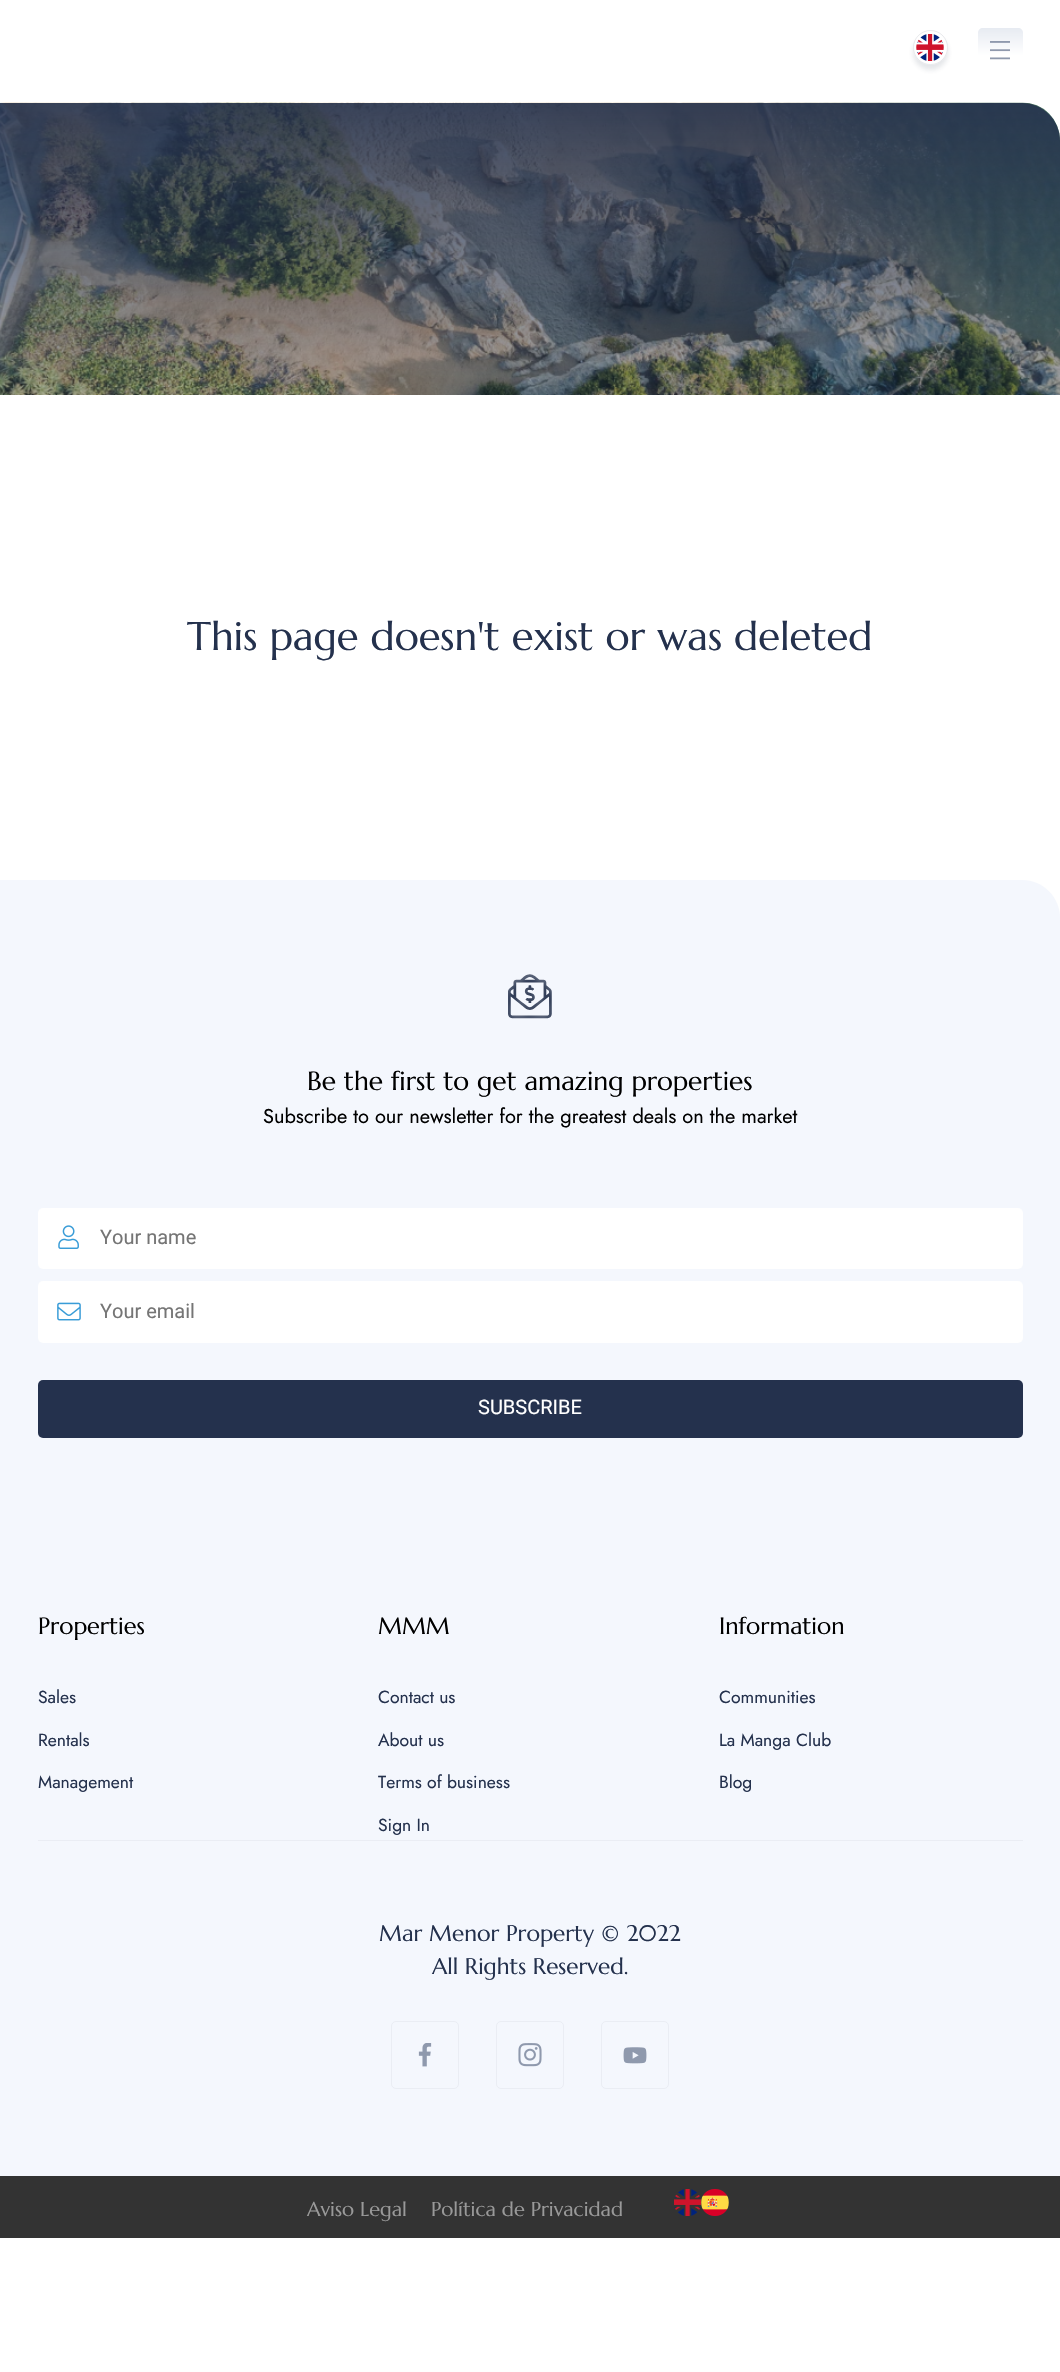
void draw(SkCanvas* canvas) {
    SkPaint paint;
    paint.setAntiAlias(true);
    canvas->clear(0xFFFFFFFF);
    paint.setColor(0x1F24314D);
    paint.setMaskFilter(SkMaskFilter::MakeBlur(kNormal_SkBlurStyle, 2.5f));
    canvas->drawRoundRect(SkRect::MakeXYWH(913, 35, 35, 35), 17.5f, 17.5f, paint);
    paint.setMaskFilter(nullptr);
    paint.setColor(0xFFFFFFFF);
    canvas->drawCircle(930.5f, 47.5f, 17.5f, paint);
    paint.setStyle(SkPaint::kStroke_Style);
    paint.setStrokeWidth(1);
    paint.setColor(0x1A24314D);
    canvas->drawCircle(930.5f, 47.5f, 17, paint);
    canvas->drawImageRect(SkImages::DeferredFromEncodedData(SkData::MakeFromFileName("img1.png")), SkRect::MakeXYWH(916, 34, 28, 27), SkSamplingOptions());
    paint.setStyle(SkPaint::kFill_Style);
    {
        const SkColor colors[] = {0xFFE6EAF1, 0xFFFFFFFF};
        const float stops[] = {0, 0.58f};
        const SkPoint ends[] = {{1000, 27}, {1000, 76}};
        paint.setShader(SkGradientShader::MakeLinear(ends, colors, stops, 2, SkTileMode::kClamp));
        paint.setAlpha(255);
    }
    canvas->drawPath(SkPathBuilder().moveTo(983, 28).lineTo(1018, 28).cubicTo(1021, 28, 1023, 30, 1023, 33).lineTo(1023, 71).cubicTo(1023, 74, 1021, 76, 1018, 76).lineTo(998, 76).cubicTo(987, 76, 978, 67, 978, 56).lineTo(978, 33).cubicTo(978, 30, 980, 28, 983, 28).close().detach(), paint);
    canvas->drawImageRect(SkImages::DeferredFromEncodedData(SkData::MakeFromFileName("img2.png")), SkRect::MakeXYWH(990, 41, 20, 19), SkSamplingOptions());
    canvas->drawImageRect(SkImages::DeferredFromEncodedData(SkData::MakeFromFileName("img3.png")), SkRect::MakeXYWH(0, 102, 1060, 293), SkSamplingOptions());
    {
        const SkColor colors[] = {0xFF24314D, 0x5E24314D};
        const float stops[] = {0, 1};
        const SkPoint ends[] = {{530, 49}, {530, 405}};
        paint.setShader(SkGradientShader::MakeLinear(ends, colors, stops, 2, SkTileMode::kClamp));
        paint.setAlpha(255);
    }
    canvas->drawPath(SkPathBuilder().moveTo(0, 103).lineTo(1022, 103).cubicTo(1043, 103, 1060, 120, 1060, 141).lineTo(1060, 395).lineTo(0, 395).close().detach(), paint);
    SkFont font1(fontMgr->matchFamilyStyle("Marcellus", SkFontStyle::Normal()), 40);
    font1.setSubpixel(true);
    paint.setShader(nullptr);
    paint.setColor(0xFF24314D);
    canvas->drawString("This page doesn't exist or was deleted", 187, 650, font1, paint);
    paint.setColor(0xFFF4F7FD);
    canvas->drawPath(SkPathBuilder().moveTo(0, 880).lineTo(1022, 880).cubicTo(1043, 880, 1060, 897, 1060, 918).lineTo(1060, 2176).lineTo(0, 2176).close().detach(), paint);
    canvas->drawImageRect(SkImages::DeferredFromEncodedData(SkData::MakeFromFileName("img4.png")), SkRect::MakeXYWH(508, 974, 44, 45), SkSamplingOptions());
    SkFont font2(fontMgr->matchFamilyStyle("Marcellus", SkFontStyle::Normal()), 26.25f);
    font2.setSubpixel(true);
    paint.setColor(0xFF000000);
    canvas->drawString("Be the first to get amazing properties", 307, 1090, font2, paint);
    SkFont font3(fontMgr->matchFamilyStyle("Jost", SkFontStyle::Normal()), 20);
    font3.setSubpixel(true);
    canvas->drawString("Subscribe to our newsletter for the greatest deals on the market", 263, 1123, font3, paint);
    paint.setColor(0xFFFFFFFF);
    canvas->drawRoundRect(SkRect::MakeXYWH(38, 1208, 985, 61), 5, 5, paint);
    canvas->drawImageRect(SkImages::DeferredFromEncodedData(SkData::MakeFromFileName("img5.png")), SkRect::MakeXYWH(58, 1225, 21, 24), SkSamplingOptions());
    SkFont font4(fontMgr->matchFamilyStyle("Roboto", SkFontStyle::Normal()), 20);
    font4.setSubpixel(true);
    paint.setColor(0xFF757575);
    canvas->drawString("Your name", 100, 1244, font4, paint);
    paint.setColor(0xFFFFFFFF);
    canvas->drawRoundRect(SkRect::MakeXYWH(38, 1281, 985, 62), 5, 5, paint);
    canvas->drawImageRect(SkImages::DeferredFromEncodedData(SkData::MakeFromFileName("img6.png")), SkRect::MakeXYWH(57, 1302, 24, 19), SkSamplingOptions());
    paint.setColor(0xFF757575);
    canvas->drawString("Your email", 100, 1318, font4, paint);
    paint.setColor(0xFF24314D);
    canvas->drawRoundRect(SkRect::MakeXYWH(38, 1380, 985, 58), 5, 5, paint);
    paint.setColor(0xFFFFFFFF);
    canvas->drawString("SUBSCRIBE", 478, 1414, font4, paint);
    SkFont font5(fontMgr->matchFamilyStyle("Marcellus", SkFontStyle::Normal()), 23.5f);
    font5.setSubpixel(true);
    paint.setColor(0xFF000000);
    canvas->drawString("Properties", 38, 1634, font5, paint);
    SkFont font6(fontMgr->matchFamilyStyle("Jost", SkFontStyle::Normal()), 17.5f);
    font6.setSubpixel(true);
    paint.setColor(0xFF24314D);
    canvas->drawString("Sales", 38, 1703, font6, paint);
    canvas->drawString("Rentals", 38, 1746, font6, paint);
    canvas->drawString("Management", 38, 1788, font6, paint);
    paint.setColor(0xFF000000);
    canvas->drawString("MMM", 378, 1634, font5, paint);
    paint.setColor(0xFF24314D);
    canvas->drawString("Contact us", 378, 1703, font6, paint);
    canvas->drawString("About us", 378, 1746, font6, paint);
    canvas->drawString("Terms of business", 378, 1788, font6, paint);
    canvas->drawString("Sign In", 378, 1831, font6, paint);
    paint.setColor(0xFF000000);
    canvas->drawString("Information", 719, 1634, font5, paint);
    paint.setColor(0xFF24314D);
    canvas->drawString("Communities", 719, 1703, font6, paint);
    canvas->drawString("La Manga Club", 719, 1746, font6, paint);
    canvas->drawString("Blog", 719, 1788, font6, paint);
    paint.setColor(0xFFEAEDF4);
    canvas->drawRect(SkRect::MakeXYWH(38, 1840, 985, 1), paint);
    SkFont font7(fontMgr->matchFamilyStyle("Marcellus", SkFontStyle::Normal()), 22.5f);
    font7.setSubpixel(true);
    paint.setColor(0xFF24314D);
    canvas->drawString("Mar Menor Property © 2022", 379, 1941, font7, paint);
    canvas->drawString("All Rights Reserved.", 432, 1974, font7, paint);
    canvas->drawImageRect(SkImages::DeferredFromEncodedData(SkData::MakeFromFileName("img7.png")), SkRect::MakeXYWH(418, 2043, 14, 24), SkSamplingOptions());
    paint.setStyle(SkPaint::kStroke_Style);
    paint.setColor(0xFFEAEDF4);
    canvas->drawRoundRect(SkRect::MakeXYWH(391.5f, 2021.5f, 67, 67), 4.5f, 4.5f, paint);
    canvas->drawImageRect(SkImages::DeferredFromEncodedData(SkData::MakeFromFileName("img8.png")), SkRect::MakeXYWH(518, 2043, 24, 24), SkSamplingOptions());
    canvas->drawRoundRect(SkRect::MakeXYWH(496.5f, 2021.5f, 67, 67), 4.5f, 4.5f, paint);
    canvas->drawImageRect(SkImages::DeferredFromEncodedData(SkData::MakeFromFileName("img9.png")), SkRect::MakeXYWH(623, 2047, 24, 17), SkSamplingOptions());
    canvas->drawRoundRect(SkRect::MakeXYWH(601.5f, 2021.5f, 67, 67), 4.5f, 4.5f, paint);
    paint.setStyle(SkPaint::kFill_Style);
    paint.setColor(0xFF333333);
    canvas->drawRect(SkRect::MakeXYWH(0, 2176, 1060, 62), paint);
    SkFont font8(fontMgr->matchFamilyStyle("Marcellus", SkFontStyle::Normal()), 20);
    font8.setSubpixel(true);
    paint.setColor(0xFF999999);
    canvas->drawString("Aviso Legal", 307, 2216, font8, paint);
    canvas->drawString("Política de Privacidad", 431, 2216, font8, paint);
    canvas->drawImageRect(SkImages::DeferredFromEncodedData(SkData::MakeFromFileName("img10.png")), SkRect::MakeXYWH(674, 2189, 27, 27), SkSamplingOptions());
    canvas->drawImageRect(SkImages::DeferredFromEncodedData(SkData::MakeFromFileName("img11.png")), SkRect::MakeXYWH(701, 2189, 28, 27), SkSamplingOptions());
}
